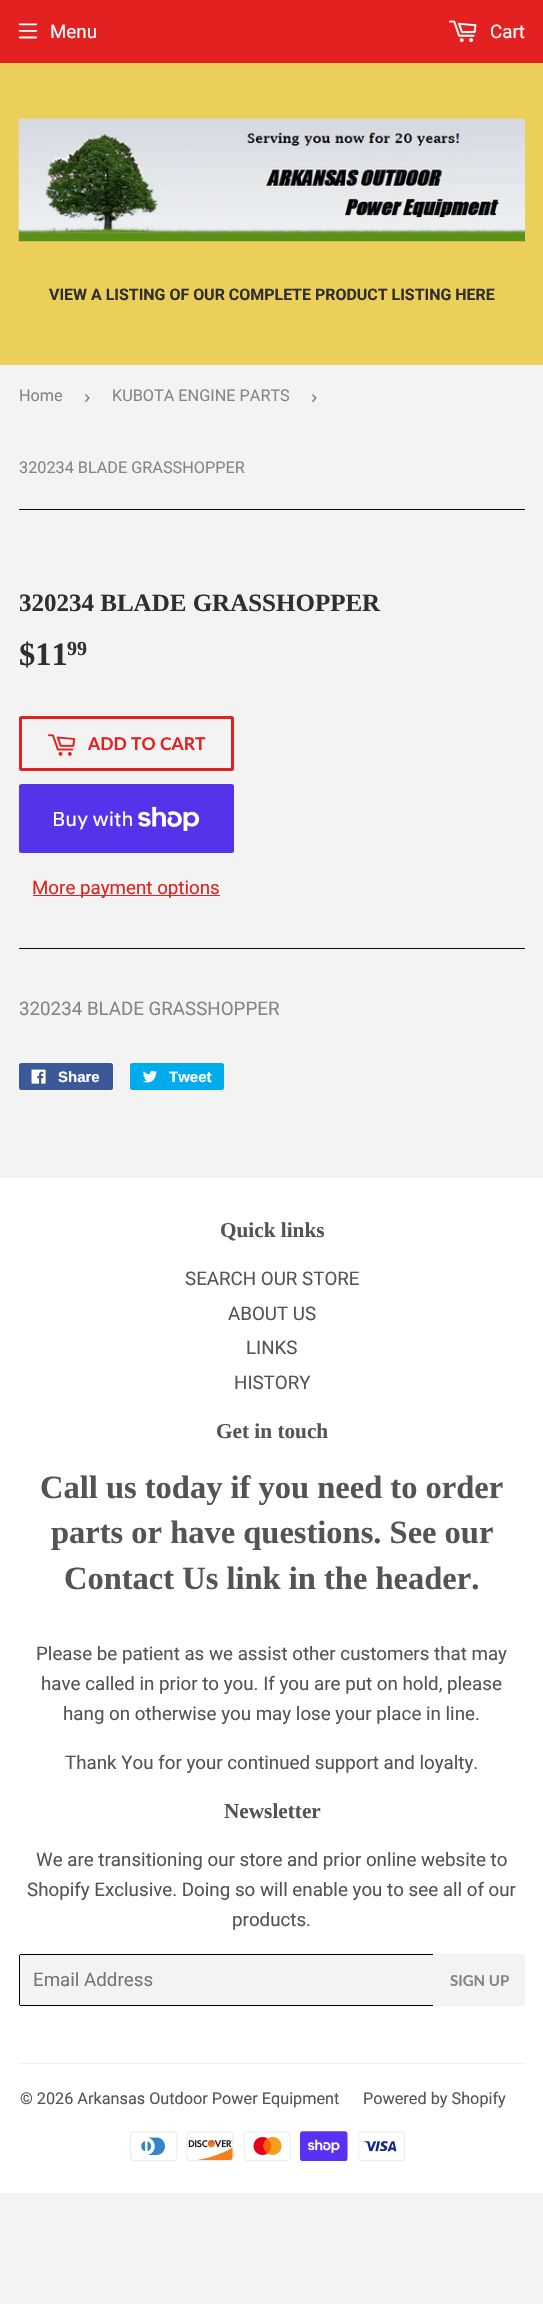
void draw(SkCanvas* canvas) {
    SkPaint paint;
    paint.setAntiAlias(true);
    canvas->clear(0xFFF3F3F3);
    paint.setColor(0xFFE22120);
    canvas->drawRect(SkRect::MakeXYWH(0, 0, 543, 63), paint);
    canvas->drawImageRect(SkImages::DeferredFromEncodedData(SkData::MakeFromFileName("img1.png")), SkRect::MakeXYWH(18, 23, 20, 16), SkSamplingOptions());
    SkFont font1(fontMgr->matchFamilyStyle("Roboto", SkFontStyle::Normal()), 18.75f);
    font1.setSubpixel(true);
    paint.setColor(0xFFFFFFFF);
    canvas->drawString("Menu", 50, 38, font1, paint);
    canvas->drawImageRect(SkImages::DeferredFromEncodedData(SkData::MakeFromFileName("img2.png")), SkRect::MakeXYWH(449, 20, 28, 23), SkSamplingOptions());
    canvas->drawString("Cart", 490, 38, font1, paint);
    paint.setColor(0xFFECCF5A);
    canvas->drawRect(SkRect::MakeXYWH(0, 63, 543, 302), paint);
    canvas->drawImageRect(SkImages::DeferredFromEncodedData(SkData::MakeFromFileName("img3.png")), SkRect::MakeXYWH(18, 118, 507, 124), SkSamplingOptions());
    SkFont font2(fontMgr->matchFamilyStyle("Roboto", SkFontStyle::Bold()), 15.95f);
    font2.setSubpixel(true);
    paint.setColor(0xFF2F2F2F);
    canvas->drawString("VIEW A LISTING OF OUR COMPLETE PRODUCT LISTING HERE", 49, 300, font2, paint);
    paint.setColor(0xFF0E0D0D);
    canvas->drawRect(SkRect::MakeXYWH(19, 509, 506, 1), paint);
    SkFont font3(fontMgr->matchFamilyStyle("Roboto", SkFontStyle::Normal()), 16.25f);
    font3.setSubpixel(true);
    paint.setColor(0xFF858585);
    canvas->drawString("Home", 19, 401, font3, paint);
    SkFont font4(fontMgr->matchFamilyStyle("Liberation Sans", SkFontStyle::Normal()), 18.75f);
    font4.setSubpixel(true);
    paint.setColor(0xFF767676);
    canvas->drawString("›", 84, 403, font4, paint);
    paint.setColor(0xFF858585);
    canvas->drawString("KUBOTA ENGINE PARTS", 112, 401, font3, paint);
    paint.setColor(0xFF767676);
    canvas->drawString("›", 311, 403, font4, paint);
    paint.setColor(0xFF858585);
    canvas->drawString("320234 BLADE GRASSHOPPER", 19, 473, font3, paint);
    SkFont font5(fontMgr->matchFamilyStyle("Liberation Serif", SkFontStyle::Bold()), 25);
    font5.setSubpixel(true);
    paint.setColor(0xFF2F2F2F);
    canvas->drawString("320234 BLADE GRASSHOPPER", 19, 611, font5, paint);
    SkFont font6(fontMgr->matchFamilyStyle("Liberation Serif", SkFontStyle::Bold()), 32.5f);
    font6.setSubpixel(true);
    canvas->drawString("$11", 19, 665, font6, paint);
    SkFont font7(fontMgr->matchFamilyStyle("Liberation Serif", SkFontStyle::Bold()), 20);
    font7.setSubpixel(true);
    canvas->drawString("99", 67, 655, font7, paint);
    paint.setStyle(SkPaint::kStroke_Style);
    paint.setStrokeWidth(3);
    paint.setColor(0xFFE22120);
    canvas->drawRoundRect(SkRect::MakeXYWH(20.5f, 717.5f, 212, 52), 1, 1, paint);
    canvas->drawImageRect(SkImages::DeferredFromEncodedData(SkData::MakeFromFileName("img4.png")), SkRect::MakeXYWH(47, 734, 29, 22), SkSamplingOptions());
    SkFont font8(fontMgr->matchFamilyStyle("Lato", SkFontStyle::Bold()), 17.5f);
    font8.setSubpixel(true);
    paint.setStyle(SkPaint::kFill_Style);
    canvas->drawString("ADD TO CART", 88, 750, font8, paint);
    paint.setColor(0xFF5433EB);
    canvas->drawRoundRect(SkRect::MakeXYWH(19, 784, 215, 69), 2.5f, 2.5f, paint);
    SkFont font9(fontMgr->matchFamilyStyle("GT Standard", SkFontStyle::Normal()), 20);
    font9.setSubpixel(true);
    paint.setColor(0xFFFFFFFF);
    canvas->drawString("Buy with", 52, 826, font9, paint);
    canvas->drawImageRect(SkImages::DeferredFromEncodedData(SkData::MakeFromFileName("img5.png")), SkRect::MakeXYWH(138, 806, 62, 25), SkSamplingOptions());
    paint.setColor(0xFFE22120);
    canvas->drawRect(SkRect::MakeXYWH(33, 895, 187, 1), paint);
    canvas->drawString("More payment options", 32, 894, font1, paint);
    paint.setColor(0xFF0E0D0D);
    canvas->drawRect(SkRect::MakeXYWH(19, 948, 506, 1), paint);
    paint.setColor(0xFF858585);
    canvas->drawString("320234 BLADE GRASSHOPPER", 19, 1015, font1, paint);
    paint.setColor(0xFF3B5998);
    canvas->drawRoundRect(SkRect::MakeXYWH(19, 1063, 94, 27), 2.5f, 2.5f, paint);
    canvas->drawImageRect(SkImages::DeferredFromEncodedData(SkData::MakeFromFileName("img6.png")), SkRect::MakeXYWH(31, 1069, 15, 15), SkSamplingOptions());
    SkFont font10(fontMgr->matchFamilyStyle("Liberation Sans", SkFontStyle::Bold()), 15);
    font10.setSubpixel(true);
    paint.setColor(0xFFFFFFFF);
    canvas->drawString("Share", 58, 1082, font10, paint);
    paint.setColor(0xFF00ACED);
    canvas->drawRoundRect(SkRect::MakeXYWH(130, 1063, 94, 27), 2.5f, 2.5f, paint);
    canvas->drawImageRect(SkImages::DeferredFromEncodedData(SkData::MakeFromFileName("img7.png")), SkRect::MakeXYWH(143, 1070, 14, 13), SkSamplingOptions());
    paint.setColor(0xFFFFFFFF);
    canvas->drawString("Tweet", 169, 1082, font10, paint);
    canvas->drawRect(SkRect::MakeXYWH(0, 1178, 543, 1015), paint);
    SkFont font11(fontMgr->matchFamilyStyle("Liberation Serif", SkFontStyle::Bold()), 21.25f);
    font11.setSubpixel(true);
    paint.setColor(0xFF545454);
    canvas->drawString("Quick links", 220, 1237, font11, paint);
    canvas->drawString("SEARCH OUR STORE", 185, 1285, font1, paint);
    canvas->drawString("ABOUT US", 228, 1320, font1, paint);
    canvas->drawString("LINKS", 246, 1354, font1, paint);
    canvas->drawString("HISTORY", 234, 1389, font1, paint);
    canvas->drawString("Get in touch", 216, 1438, font11, paint);
    canvas->drawString("Call us today if you need to order", 40, 1498, font6, paint);
    canvas->drawString("parts or have questions. See our", 51, 1543, font6, paint);
    canvas->drawString("Contact Us link in the header.", 64, 1589, font6, paint);
    canvas->drawString("Please be patient as we assist other customers that may", 36, 1660, font1, paint);
    canvas->drawString("have called in prior to you. If you are put on hold, please", 41, 1690, font1, paint);
    canvas->drawString("hang on otherwise you may lose your place in line.", 63, 1720, font1, paint);
    canvas->drawString("Thank You for your continued support and loyalty.", 65, 1769, font1, paint);
    canvas->drawString("Newsletter", 224, 1818, font11, paint);
    canvas->drawString("We are transitioning our store and prior online website to", 36, 1866, font1, paint);
    canvas->drawString("Shopify Exclusive. Doing so will enable you to see all of our", 27, 1896, font1, paint);
    canvas->drawString("products.", 232, 1926, font1, paint);
    paint.setColor(0xFFF3F3F3);
    canvas->drawRoundRect(SkRect::MakeXYWH(19, 1954, 415, 52), 2.5f, 2.5f, paint);
    paint.setColor(0xFF000000);
    canvas->drawRect(SkRect::MakeXYWH(20, 1954, 413, 1), paint);
    canvas->drawRect(SkRect::MakeXYWH(20, 2005, 413, 1), paint);
    canvas->drawRect(SkRect::MakeXYWH(19, 1955, 1, 50), paint);
    paint.setColor(0xFF767676);
    canvas->drawString("Email Address", 33, 1986, font1, paint);
    paint.setColor(0xFFF3F3F3);
    canvas->drawPath(SkPathBuilder().moveTo(434, 1954).lineTo(522.5f, 1954).cubicTo(524, 1954, 525, 1955, 525, 1956.5f).lineTo(525, 2003.5f).cubicTo(525, 2005, 524, 2006, 522.5f, 2006).lineTo(434, 2006).close().detach(), paint);
    SkFont font12(fontMgr->matchFamilyStyle("Lato", SkFontStyle::Bold()), 15);
    font12.setSubpixel(true);
    paint.setColor(0xFF858585);
    canvas->drawString("SIGN UP", 450, 1986, font12, paint);
    paint.setColor(0xFFF2F2F2);
    canvas->drawRect(SkRect::MakeXYWH(19, 2063, 506, 1), paint);
    paint.setColor(0xFF545454);
    canvas->drawString("© 2026 Arkansas Outdoor Power Equipment", 20, 2104, font3, paint);
    canvas->drawString("Powered by Shopify", 363, 2104, font3, paint);
    canvas->drawImageRect(SkImages::DeferredFromEncodedData(SkData::MakeFromFileName("img8.png")), SkRect::MakeXYWH(130, 2131, 48, 30), SkSamplingOptions());
    canvas->drawImageRect(SkImages::DeferredFromEncodedData(SkData::MakeFromFileName("img9.png")), SkRect::MakeXYWH(186, 2131, 48, 30), SkSamplingOptions());
    canvas->drawImageRect(SkImages::DeferredFromEncodedData(SkData::MakeFromFileName("img10.png")), SkRect::MakeXYWH(244, 2131, 47, 30), SkSamplingOptions());
    canvas->drawImageRect(SkImages::DeferredFromEncodedData(SkData::MakeFromFileName("img11.png")), SkRect::MakeXYWH(300, 2131, 48, 30), SkSamplingOptions());
    canvas->drawImageRect(SkImages::DeferredFromEncodedData(SkData::MakeFromFileName("img12.png")), SkRect::MakeXYWH(358, 2131, 47, 30), SkSamplingOptions());
}
